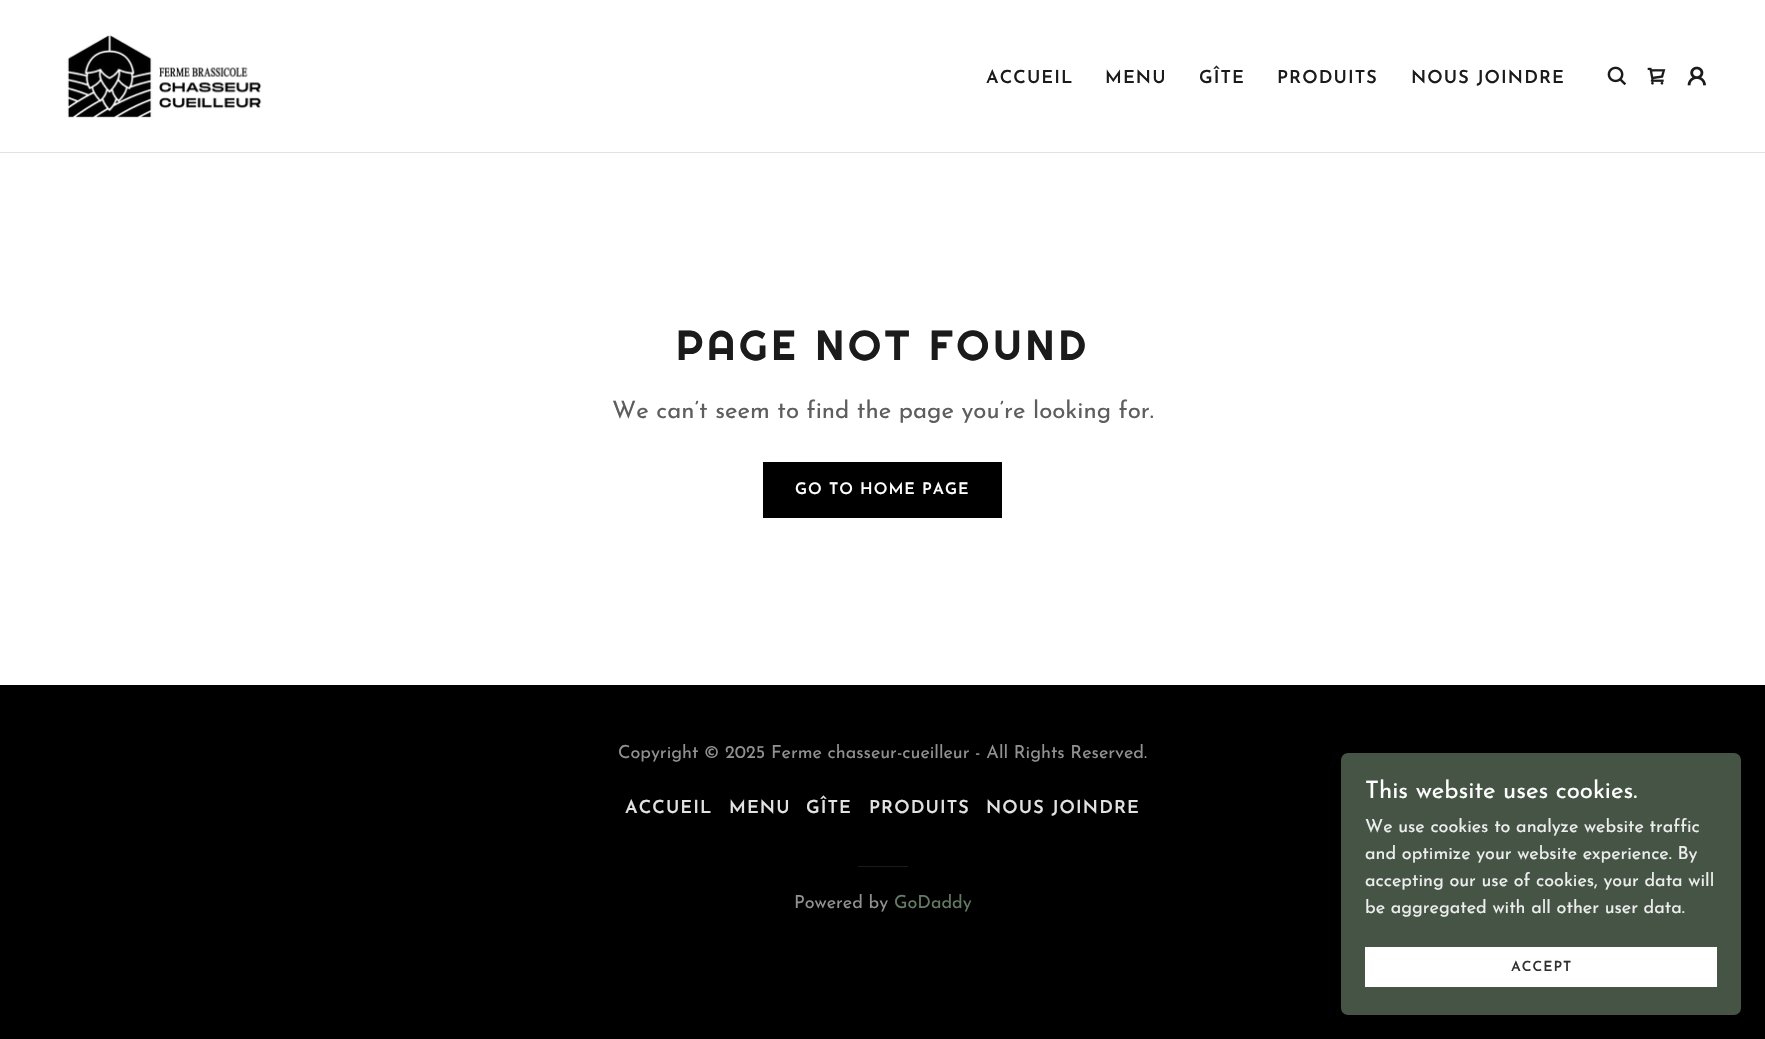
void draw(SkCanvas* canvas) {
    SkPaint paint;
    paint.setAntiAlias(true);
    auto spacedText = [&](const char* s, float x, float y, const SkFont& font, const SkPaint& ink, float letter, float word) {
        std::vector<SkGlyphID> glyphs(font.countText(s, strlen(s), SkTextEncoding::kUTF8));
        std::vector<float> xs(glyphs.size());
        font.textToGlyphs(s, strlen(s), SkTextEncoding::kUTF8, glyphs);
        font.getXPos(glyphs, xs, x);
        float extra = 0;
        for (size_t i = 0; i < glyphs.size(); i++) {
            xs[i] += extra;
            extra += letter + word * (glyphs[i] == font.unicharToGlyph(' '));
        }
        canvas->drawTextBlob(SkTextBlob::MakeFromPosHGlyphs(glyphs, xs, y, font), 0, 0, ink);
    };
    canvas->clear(0xFF000000);
    paint.setColor(0xFFFFFFFF);
    canvas->drawRect(SkRect::MakeXYWH(0, 0, 1765, 152), paint);
    canvas->drawImageRect(SkImages::DeferredFromEncodedData(SkData::MakeFromFileName("img1.png")), SkRect::MakeXYWH(67, 35, 195, 83), SkSamplingOptions());
    SkFont font1(fontMgr->matchFamilyStyle("Josefin Sans", SkFontStyle(600, SkFontStyle::kNormal_Width, SkFontStyle::kUpright_Slant)), 18);
    font1.setSubpixel(true);
    paint.setColor(0xFF1B1B1B);
    spacedText("ACCUEIL", 986, 83, font1, paint, 1.1f, 0);
    spacedText("MENU", 1105, 83, font1, paint, 1.1f, 0);
    spacedText("GÎTE", 1199, 83, font1, paint, 1.1f, 0);
    spacedText("PRODUITS", 1277, 83, font1, paint, 1.1f, 0);
    spacedText("NOUS JOINDRE", 1411, 83, font1, paint, 1.1f, 0);
    canvas->drawImageRect(SkImages::DeferredFromEncodedData(SkData::MakeFromFileName("img2.png")), SkRect::MakeXYWH(1607, 66, 20, 20), SkSamplingOptions());
    canvas->drawImageRect(SkImages::DeferredFromEncodedData(SkData::MakeFromFileName("img3.png")), SkRect::MakeXYWH(1647, 67, 19, 18), SkSamplingOptions());
    canvas->drawImageRect(SkImages::DeferredFromEncodedData(SkData::MakeFromFileName("img4.png")), SkRect::MakeXYWH(1687, 66, 19, 20), SkSamplingOptions());
    paint.setColor(0xFFE2E2E2);
    canvas->drawRect(SkRect::MakeXYWH(0, 152, 1765, 1), paint);
    paint.setColor(0xFFFFFFFF);
    canvas->drawRect(SkRect::MakeXYWH(0, 153, 1765, 532), paint);
    SkFont font2(fontMgr->matchFamilyStyle("Righteous", SkFontStyle::Normal()), 42);
    font2.setSubpixel(true);
    paint.setColor(0xFF1B1B1B);
    spacedText("PAGE NOT FOUND", 676, 360, font2, paint, 4, 0);
    SkFont font3(fontMgr->matchFamilyStyle("Josefin Sans", SkFontStyle::Normal()), 24);
    font3.setSubpixel(true);
    paint.setColor(0xFF5E5E5E);
    canvas->drawString("We can’t seem to find the page you’re looking for.", 612, 418, font3, paint);
    paint.setColor(0xFF000000);
    canvas->drawRect(SkRect::MakeXYWH(763, 462, 239, 56), paint);
    SkFont font4(fontMgr->matchFamilyStyle("Josefin Sans", SkFontStyle(600, SkFontStyle::kNormal_Width, SkFontStyle::kUpright_Slant)), 16);
    font4.setSubpixel(true);
    paint.setColor(0xFFFFFFFF);
    spacedText("GO TO HOME PAGE", 795, 494, font4, paint, 1, 0);
    SkFont font5(fontMgr->matchFamilyStyle("Josefin Sans", SkFontStyle::Normal()), 18);
    font5.setSubpixel(true);
    paint.setColor(0xFF919191);
    canvas->drawString("Copyright © 2025 Ferme chasseur-cueilleur - All Rights Reserved.", 618, 758, font5, paint);
    paint.setColor(0xFFE2E2E2);
    spacedText("ACCUEIL", 625, 813, font1, paint, 1.1f, 0);
    spacedText("MENU", 729, 813, font1, paint, 1.1f, 0);
    spacedText("GÎTE", 806, 813, font1, paint, 1.1f, 0);
    spacedText("PRODUITS", 869, 813, font1, paint, 1.1f, 0);
    spacedText("NOUS JOINDRE", 986, 813, font1, paint, 1.1f, 0);
    paint.setColor(0xFF1B1B1B);
    canvas->drawRect(SkRect::MakeXYWH(858, 866, 50, 1), paint);
    paint.setColor(0xFF919191);
    canvas->drawString("Powered by", 794, 908, font5, paint);
    paint.setColor(0xFF647A64);
    canvas->drawString("GoDaddy", 894, 908, font5, paint);
    paint.setColor(0xFF455445);
    canvas->drawRoundRect(SkRect::MakeXYWH(1341, 753, 400, 262), 7, 7, paint);
    paint.setColor(0xFFFFFFFF);
    canvas->drawString("This website uses cookies.", 1365, 798, font3, paint);
    paint.setColor(0xFFEDEEED);
    canvas->drawString("We use cookies to analyze website traffic", 1365, 832, font5, paint);
    canvas->drawString("and optimize your website experience. By", 1365, 859, font5, paint);
    canvas->drawString("accepting our use of cookies, your data will", 1365, 886, font5, paint);
    canvas->drawString("be aggregated with all other user data.", 1365, 913, font5, paint);
    paint.setColor(0xFFFFFFFF);
    canvas->drawRect(SkRect::MakeXYWH(1365, 947, 352, 40), paint);
    SkFont font6(fontMgr->matchFamilyStyle("Josefin Sans", SkFontStyle(600, SkFontStyle::kNormal_Width, SkFontStyle::kUpright_Slant)), 14);
    font6.setSubpixel(true);
    paint.setColor(0xFF303030);
    spacedText("ACCEPT", 1511, 971, font6, paint, 1, 0);
}
